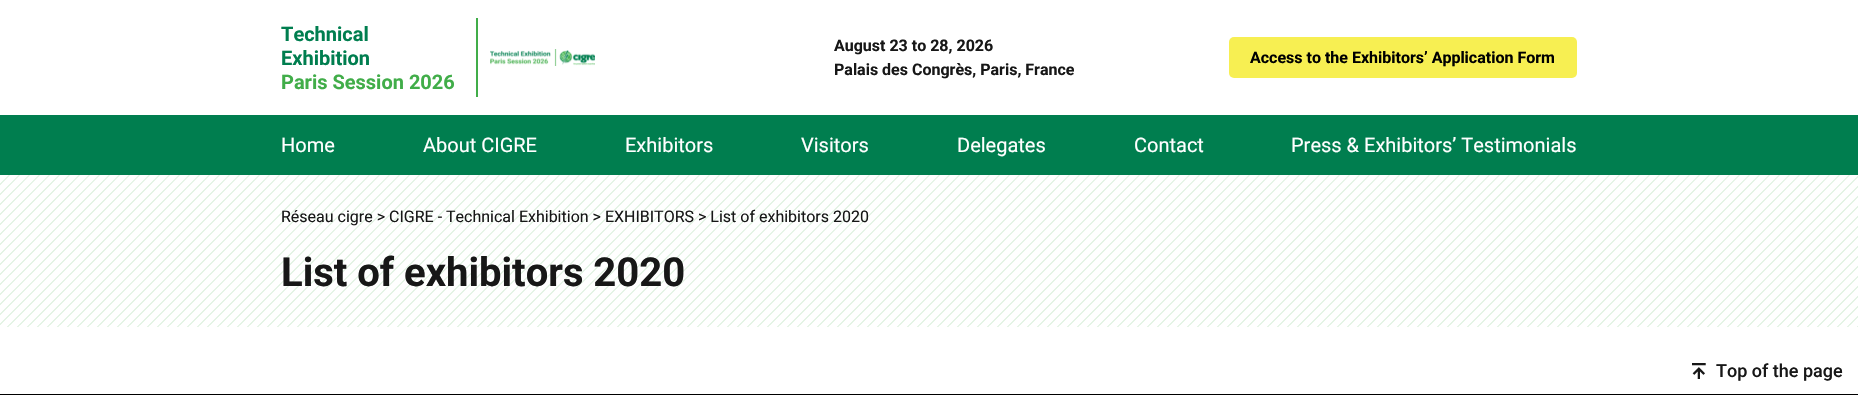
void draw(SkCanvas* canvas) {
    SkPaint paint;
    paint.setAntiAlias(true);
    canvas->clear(0xFFFFFFFF);
    paint.setColor(0xFF41AD49);
    canvas->drawRect(SkRect::MakeXYWH(476, 18, 2, 79), paint);
    SkFont font1(fontMgr->matchFamilyStyle("Roboto", SkFontStyle::Bold()), 20);
    font1.setSubpixel(true);
    paint.setColor(0xFF007E4F);
    canvas->drawString("Technical", 281, 41, font1, paint);
    canvas->drawString("Exhibition", 281, 65, font1, paint);
    paint.setColor(0xFF41AD49);
    canvas->drawString("Paris Session 2026", 281, 89, font1, paint);
    canvas->drawImageRect(SkImages::DeferredFromEncodedData(SkData::MakeFromFileName("img1.png")), SkRect::MakeXYWH(490, 49, 105, 17), SkSamplingOptions());
    SkFont font2(fontMgr->matchFamilyStyle("Roboto", SkFontStyle::Bold()), 16);
    font2.setSubpixel(true);
    paint.setColor(0xFF171717);
    canvas->drawString("August 23 to 28, 2026", 834, 51, font2, paint);
    canvas->drawString("Palais des Congrès, Paris, France", 834, 75, font2, paint);
    paint.setColor(0xFFF7EF52);
    canvas->drawRoundRect(SkRect::MakeXYWH(1229, 37, 348, 41), 5, 5, paint);
    paint.setColor(0xFF000000);
    canvas->drawString("Access to the Exhibitors’ Application Form", 1250, 63, font2, paint);
    paint.setColor(0xFF007E4F);
    canvas->drawRect(SkRect::MakeXYWH(0, 115, 1858, 60), paint);
    SkFont font3(fontMgr->matchFamilyStyle("Roboto", SkFontStyle::Normal()), 20);
    font3.setSubpixel(true);
    paint.setColor(0xFFFFFFFF);
    canvas->drawString("Home", 281, 152, font3, paint);
    canvas->drawString("About CIGRE", 423, 152, font3, paint);
    canvas->drawString("Exhibitors", 625, 152, font3, paint);
    canvas->drawString("Visitors", 801, 152, font3, paint);
    canvas->drawString("Delegates", 957, 152, font3, paint);
    canvas->drawString("Contact", 1134, 152, font3, paint);
    canvas->drawString("Press & Exhibitors’ Testimonials", 1291, 152, font3, paint);
    canvas->drawImageRect(SkImages::DeferredFromEncodedData(SkData::MakeFromFileName("img2.png")), SkRect::MakeXYWH(0, 175, 1858, 152), SkSamplingOptions());
    SkFont font4(fontMgr->matchFamilyStyle("Roboto", SkFontStyle::Normal()), 16);
    font4.setSubpixel(true);
    paint.setColor(0xFF171717);
    canvas->drawString("Réseau cigre > CIGRE - Technical Exhibition > EXHIBITORS > List of exhibitors 2020", 281, 222, font4, paint);
    SkFont font5(fontMgr->matchFamilyStyle("Roboto", SkFontStyle::Bold()), 40);
    font5.setSubpixel(true);
    canvas->drawString("List of exhibitors 2020", 281, 286, font5, paint);
    canvas->drawImageRect(SkImages::DeferredFromEncodedData(SkData::MakeFromFileName("img3.png")), SkRect::MakeXYWH(1692, 363, 14, 16), SkSamplingOptions());
    SkFont font6(fontMgr->matchFamilyStyle("Roboto", SkFontStyle(500, SkFontStyle::kNormal_Width, SkFontStyle::kUpright_Slant)), 18);
    font6.setSubpixel(true);
    canvas->drawString("Top of the page", 1716, 377, font6, paint);
    paint.setColor(0xFF000000);
    canvas->drawRect(SkRect::MakeXYWH(0, 394, 1858, 1), paint);
}
